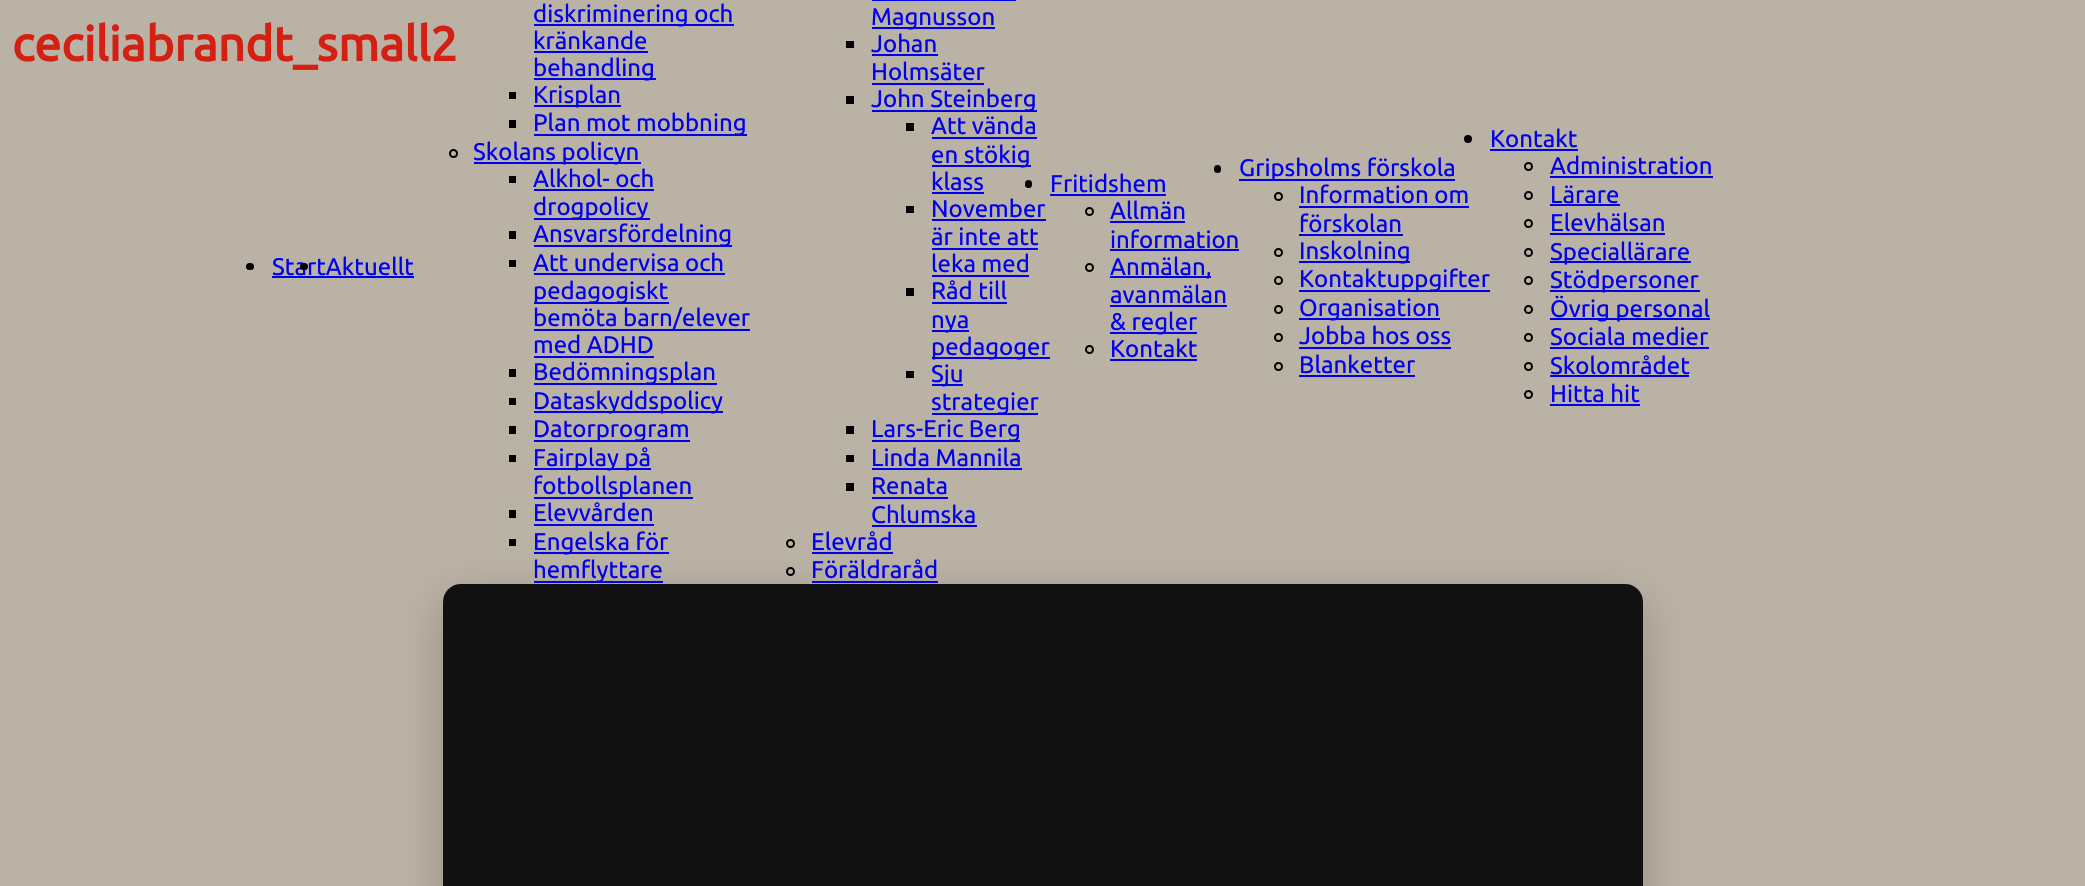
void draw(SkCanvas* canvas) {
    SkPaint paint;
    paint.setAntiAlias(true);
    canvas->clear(0xFFBBB2A6);
    SkFont font1(fontMgr->matchFamilyStyle("Ubuntu", SkFontStyle::Bold()), 48);
    font1.setSubpixel(true);
    paint.setColor(0xFFD42013);
    canvas->drawString("ceciliabrandt_small2", 12, 61, font1, paint);
    paint.setColor(0xFF000000);
    canvas->drawRoundRect(SkRect::MakeXYWH(246, 263, 8, 7), 3.5f, 3.5f, paint);
    SkFont font2(fontMgr->matchFamilyStyle("Ubuntu", SkFontStyle::Normal()), 24);
    font2.setSubpixel(true);
    paint.setColor(0xFF0000EE);
    canvas->drawString("StartAktuellt", 272, 275, font2, paint);
    canvas->drawRect(SkRect::MakeXYWH(272, 276, 142, 2), paint);
    canvas->drawRect(SkRect::MakeXYWH(534, 24, 200, 2), paint);
    canvas->drawString("diskriminering och", 533, 22, font2, paint);
    canvas->drawString("kränkande", 533, 49, font2, paint);
    canvas->drawRect(SkRect::MakeXYWH(534, 51, 114, 2), paint);
    canvas->drawRect(SkRect::MakeXYWH(534, 78, 122, 2), paint);
    canvas->drawString("behandling", 533, 76, font2, paint);
    paint.setColor(0xFF000000);
    canvas->drawRect(SkRect::MakeXYWH(509, 92, 7, 7), paint);
    paint.setColor(0xFF0000EE);
    canvas->drawRect(SkRect::MakeXYWH(534, 105, 87, 2), paint);
    canvas->drawString("Krisplan", 533, 103, font2, paint);
    paint.setColor(0xFF000000);
    canvas->drawRect(SkRect::MakeXYWH(509, 120, 7, 8), paint);
    paint.setColor(0xFF0000EE);
    canvas->drawRect(SkRect::MakeXYWH(534, 134, 213, 2), paint);
    canvas->drawString("Plan mot mobbning", 533, 131, font2, paint);
    paint.setStyle(SkPaint::kStroke_Style);
    paint.setStrokeWidth(2);
    paint.setColor(0xFF000000);
    canvas->drawCircle(453.5f, 153.5f, 3.5f, paint);
    paint.setStyle(SkPaint::kFill_Style);
    paint.setColor(0xFF0000EE);
    canvas->drawRect(SkRect::MakeXYWH(474, 162, 167, 2), paint);
    canvas->drawString("Skolans policyn", 473, 160, font2, paint);
    paint.setColor(0xFF000000);
    canvas->drawRect(SkRect::MakeXYWH(509, 176, 7, 7), paint);
    paint.setColor(0xFF0000EE);
    canvas->drawString("Alkhol- och", 533, 187, font2, paint);
    canvas->drawRect(SkRect::MakeXYWH(534, 189, 120, 2), paint);
    canvas->drawRect(SkRect::MakeXYWH(534, 218, 116, 2), paint);
    canvas->drawString("drogpolicy", 533, 215, font2, paint);
    paint.setColor(0xFF000000);
    canvas->drawRect(SkRect::MakeXYWH(509, 231, 7, 8), paint);
    paint.setColor(0xFF0000EE);
    canvas->drawRect(SkRect::MakeXYWH(534, 245, 198, 2), paint);
    canvas->drawString("Ansvarsfördelning", 533, 242, font2, paint);
    paint.setColor(0xFF000000);
    canvas->drawRect(SkRect::MakeXYWH(509, 260, 7, 7), paint);
    paint.setColor(0xFF0000EE);
    canvas->drawString("Att undervisa och", 533, 271, font2, paint);
    canvas->drawRect(SkRect::MakeXYWH(534, 273, 191, 2), paint);
    canvas->drawRect(SkRect::MakeXYWH(534, 302, 135, 2), paint);
    canvas->drawString("pedagogiskt", 533, 299, font2, paint);
    canvas->drawRect(SkRect::MakeXYWH(534, 329, 216, 2), paint);
    canvas->drawString("bemöta barn/elever", 533, 326, font2, paint);
    canvas->drawString("med ADHD", 533, 353, font2, paint);
    canvas->drawRect(SkRect::MakeXYWH(534, 356, 120, 2), paint);
    paint.setColor(0xFF000000);
    canvas->drawRect(SkRect::MakeXYWH(509, 369, 7, 8), paint);
    paint.setColor(0xFF0000EE);
    canvas->drawRect(SkRect::MakeXYWH(534, 383, 183, 2), paint);
    canvas->drawString("Bedömningsplan", 533, 380, font2, paint);
    paint.setColor(0xFF000000);
    canvas->drawRect(SkRect::MakeXYWH(509, 398, 7, 7), paint);
    paint.setColor(0xFF0000EE);
    canvas->drawRect(SkRect::MakeXYWH(534, 411, 189, 2), paint);
    canvas->drawString("Dataskyddspolicy", 533, 409, font2, paint);
    paint.setColor(0xFF000000);
    canvas->drawRect(SkRect::MakeXYWH(509, 426, 7, 8), paint);
    paint.setColor(0xFF0000EE);
    canvas->drawRect(SkRect::MakeXYWH(534, 440, 156, 2), paint);
    canvas->drawString("Datorprogram", 533, 437, font2, paint);
    paint.setColor(0xFF000000);
    canvas->drawRect(SkRect::MakeXYWH(509, 455, 7, 7), paint);
    paint.setColor(0xFF0000EE);
    canvas->drawRect(SkRect::MakeXYWH(534, 468, 117, 2), paint);
    canvas->drawString("Fairplay på", 533, 466, font2, paint);
    canvas->drawRect(SkRect::MakeXYWH(534, 497, 159, 2), paint);
    canvas->drawString("fotbollsplanen", 533, 494, font2, paint);
    paint.setColor(0xFF000000);
    canvas->drawRect(SkRect::MakeXYWH(509, 510, 7, 8), paint);
    paint.setColor(0xFF0000EE);
    canvas->drawString("Elevvården", 533, 521, font2, paint);
    canvas->drawRect(SkRect::MakeXYWH(534, 524, 120, 2), paint);
    paint.setColor(0xFF000000);
    canvas->drawRect(SkRect::MakeXYWH(509, 539, 7, 7), paint);
    paint.setColor(0xFF0000EE);
    canvas->drawRect(SkRect::MakeXYWH(534, 552, 135, 2), paint);
    canvas->drawString("Engelska för", 533, 550, font2, paint);
    canvas->drawRect(SkRect::MakeXYWH(534, 581, 129, 2), paint);
    canvas->drawString("hemflyttare", 533, 578, font2, paint);
    canvas->drawRect(SkRect::MakeXYWH(872, 27, 123, 2), paint);
    canvas->drawString("Magnusson", 871, 25, font2, paint);
    canvas->drawRect(SkRect::MakeXYWH(872, 0, 144, 1), paint);
    paint.setColor(0xFF000000);
    canvas->drawRect(SkRect::MakeXYWH(846, 41, 8, 7), paint);
    paint.setColor(0xFF0000EE);
    canvas->drawString("Johan", 871, 52, font2, paint);
    canvas->drawRect(SkRect::MakeXYWH(872, 54, 66, 2), paint);
    canvas->drawString("Holmsäter", 871, 80, font2, paint);
    canvas->drawRect(SkRect::MakeXYWH(872, 83, 112, 2), paint);
    paint.setColor(0xFF000000);
    canvas->drawRect(SkRect::MakeXYWH(846, 96, 8, 8), paint);
    paint.setColor(0xFF0000EE);
    canvas->drawRect(SkRect::MakeXYWH(872, 110, 165, 2), paint);
    canvas->drawString("John Steinberg", 871, 107, font2, paint);
    paint.setColor(0xFF000000);
    canvas->drawRect(SkRect::MakeXYWH(906, 123, 8, 8), paint);
    paint.setColor(0xFF0000EE);
    canvas->drawString("Att vända", 931, 134, font2, paint);
    canvas->drawRect(SkRect::MakeXYWH(932, 137, 105, 2), paint);
    canvas->drawRect(SkRect::MakeXYWH(932, 165, 99, 2), paint);
    canvas->drawString("en stökig", 931, 163, font2, paint);
    canvas->drawString("klass", 931, 190, font2, paint);
    canvas->drawRect(SkRect::MakeXYWH(932, 192, 52, 2), paint);
    paint.setColor(0xFF000000);
    canvas->drawRect(SkRect::MakeXYWH(906, 206, 8, 7), paint);
    paint.setColor(0xFF0000EE);
    canvas->drawString("November", 931, 217, font2, paint);
    canvas->drawRect(SkRect::MakeXYWH(932, 219, 114, 2), paint);
    canvas->drawString("är inte att", 931, 245, font2, paint);
    canvas->drawRect(SkRect::MakeXYWH(932, 248, 106, 2), paint);
    canvas->drawString("leka med", 931, 272, font2, paint);
    canvas->drawRect(SkRect::MakeXYWH(932, 275, 97, 2), paint);
    paint.setColor(0xFF000000);
    canvas->drawRect(SkRect::MakeXYWH(906, 288, 8, 8), paint);
    paint.setColor(0xFF0000EE);
    canvas->drawString("Råd till", 931, 299, font2, paint);
    canvas->drawRect(SkRect::MakeXYWH(932, 302, 75, 2), paint);
    canvas->drawRect(SkRect::MakeXYWH(932, 330, 37, 2), paint);
    canvas->drawString("nya", 931, 328, font2, paint);
    canvas->drawRect(SkRect::MakeXYWH(932, 357, 118, 2), paint);
    canvas->drawString("pedagoger", 931, 355, font2, paint);
    paint.setColor(0xFF000000);
    canvas->drawRect(SkRect::MakeXYWH(906, 371, 8, 7), paint);
    paint.setColor(0xFF0000EE);
    canvas->drawRect(SkRect::MakeXYWH(932, 384, 31, 2), paint);
    canvas->drawString("Sju", 931, 382, font2, paint);
    canvas->drawRect(SkRect::MakeXYWH(932, 413, 106, 2), paint);
    canvas->drawString("strategier", 931, 410, font2, paint);
    paint.setColor(0xFF000000);
    canvas->drawRect(SkRect::MakeXYWH(846, 426, 8, 8), paint);
    paint.setColor(0xFF0000EE);
    canvas->drawRect(SkRect::MakeXYWH(872, 440, 148, 2), paint);
    canvas->drawString("Lars-Eric Berg", 871, 437, font2, paint);
    paint.setColor(0xFF000000);
    canvas->drawRect(SkRect::MakeXYWH(846, 455, 8, 7), paint);
    paint.setColor(0xFF0000EE);
    canvas->drawString("Linda Mannila", 871, 466, font2, paint);
    canvas->drawRect(SkRect::MakeXYWH(872, 468, 150, 2), paint);
    paint.setColor(0xFF000000);
    canvas->drawRect(SkRect::MakeXYWH(846, 483, 8, 8), paint);
    paint.setColor(0xFF0000EE);
    canvas->drawString("Renata", 871, 494, font2, paint);
    canvas->drawRect(SkRect::MakeXYWH(872, 497, 76, 2), paint);
    canvas->drawString("Chlumska", 871, 523, font2, paint);
    canvas->drawRect(SkRect::MakeXYWH(872, 525, 105, 2), paint);
    paint.setStyle(SkPaint::kStroke_Style);
    paint.setColor(0xFF000000);
    canvas->drawCircle(790.5f, 543.5f, 3.5f, paint);
    paint.setStyle(SkPaint::kFill_Style);
    paint.setColor(0xFF0000EE);
    canvas->drawString("Elevråd", 811, 550, font2, paint);
    canvas->drawRect(SkRect::MakeXYWH(812, 552, 81, 2), paint);
    paint.setStyle(SkPaint::kStroke_Style);
    paint.setColor(0xFF000000);
    canvas->drawCircle(790.5f, 571.5f, 3.5f, paint);
    paint.setStyle(SkPaint::kFill_Style);
    paint.setColor(0xFF0000EE);
    canvas->drawString("Föräldraråd", 811, 578, font2, paint);
    canvas->drawRect(SkRect::MakeXYWH(812, 581, 126, 2), paint);
    paint.setColor(0xFF000000);
    canvas->drawRoundRect(SkRect::MakeXYWH(1025, 180, 7, 8), 3.5f, 3.5f, paint);
    paint.setColor(0xFF0000EE);
    canvas->drawString("Fritidshem", 1050, 192, font2, paint);
    canvas->drawRect(SkRect::MakeXYWH(1050, 194, 116, 2), paint);
    paint.setStyle(SkPaint::kStroke_Style);
    paint.setColor(0xFF000000);
    canvas->drawCircle(1089.5f, 211.5f, 3.5f, paint);
    paint.setStyle(SkPaint::kFill_Style);
    paint.setColor(0xFF0000EE);
    canvas->drawString("Allmän", 1110, 219, font2, paint);
    canvas->drawRect(SkRect::MakeXYWH(1110, 221, 75, 2), paint);
    canvas->drawString("information", 1110, 248, font2, paint);
    canvas->drawRect(SkRect::MakeXYWH(1110, 249, 129, 2), paint);
    paint.setStyle(SkPaint::kStroke_Style);
    paint.setColor(0xFF000000);
    canvas->drawCircle(1089.5f, 267.5f, 3.5f, paint);
    paint.setStyle(SkPaint::kFill_Style);
    paint.setColor(0xFF0000EE);
    canvas->drawRect(SkRect::MakeXYWH(1110, 276, 101, 2), paint);
    canvas->drawString("Anmälan,", 1110, 275, font2, paint);
    canvas->drawString("avanmälan", 1110, 303, font2, paint);
    canvas->drawRect(SkRect::MakeXYWH(1110, 305, 117, 2), paint);
    canvas->drawRect(SkRect::MakeXYWH(1110, 332, 87, 2), paint);
    canvas->drawString("& regler", 1110, 330, font2, paint);
    paint.setStyle(SkPaint::kStroke_Style);
    paint.setColor(0xFF000000);
    canvas->drawCircle(1089.5f, 349.5f, 3.5f, paint);
    paint.setStyle(SkPaint::kFill_Style);
    paint.setColor(0xFF0000EE);
    canvas->drawString("Kontakt", 1110, 357, font2, paint);
    canvas->drawRect(SkRect::MakeXYWH(1110, 359, 87, 2), paint);
    paint.setColor(0xFF000000);
    canvas->drawRoundRect(SkRect::MakeXYWH(1214, 165, 7, 8), 3.5f, 3.5f, paint);
    paint.setColor(0xFF0000EE);
    canvas->drawRect(SkRect::MakeXYWH(1239, 179, 216, 2), paint);
    canvas->drawString("Gripsholms förskola", 1239, 176, font2, paint);
    paint.setStyle(SkPaint::kStroke_Style);
    paint.setColor(0xFF000000);
    canvas->drawCircle(1278.5f, 196.5f, 3.5f, paint);
    paint.setStyle(SkPaint::kFill_Style);
    paint.setColor(0xFF0000EE);
    canvas->drawString("Information om", 1299, 203, font2, paint);
    canvas->drawRect(SkRect::MakeXYWH(1299, 206, 170, 2), paint);
    canvas->drawString("förskolan", 1299, 232, font2, paint);
    canvas->drawRect(SkRect::MakeXYWH(1299, 234, 104, 2), paint);
    paint.setStyle(SkPaint::kStroke_Style);
    paint.setColor(0xFF000000);
    canvas->drawCircle(1278.5f, 252.5f, 3.5f, paint);
    paint.setStyle(SkPaint::kFill_Style);
    paint.setColor(0xFF0000EE);
    canvas->drawRect(SkRect::MakeXYWH(1299, 261, 111, 2), paint);
    canvas->drawString("Inskolning", 1299, 259, font2, paint);
    paint.setStyle(SkPaint::kStroke_Style);
    paint.setColor(0xFF000000);
    canvas->drawCircle(1278.5f, 280.5f, 3.5f, paint);
    paint.setStyle(SkPaint::kFill_Style);
    paint.setColor(0xFF0000EE);
    canvas->drawRect(SkRect::MakeXYWH(1299, 290, 191, 2), paint);
    canvas->drawString("Kontaktuppgifter", 1299, 287, font2, paint);
    paint.setStyle(SkPaint::kStroke_Style);
    paint.setColor(0xFF000000);
    canvas->drawCircle(1278.5f, 309.5f, 3.5f, paint);
    paint.setStyle(SkPaint::kFill_Style);
    paint.setColor(0xFF0000EE);
    canvas->drawRect(SkRect::MakeXYWH(1299, 318, 141, 2), paint);
    canvas->drawString("Organisation", 1299, 316, font2, paint);
    paint.setStyle(SkPaint::kStroke_Style);
    paint.setColor(0xFF000000);
    canvas->drawCircle(1278.5f, 337.5f, 3.5f, paint);
    paint.setStyle(SkPaint::kFill_Style);
    paint.setColor(0xFF0000EE);
    canvas->drawString("Jobba hos oss", 1299, 344, font2, paint);
    canvas->drawRect(SkRect::MakeXYWH(1299, 347, 152, 2), paint);
    paint.setStyle(SkPaint::kStroke_Style);
    paint.setColor(0xFF000000);
    canvas->drawCircle(1278.5f, 366.5f, 3.5f, paint);
    paint.setStyle(SkPaint::kFill_Style);
    paint.setColor(0xFF0000EE);
    canvas->drawString("Blanketter", 1299, 373, font2, paint);
    canvas->drawRect(SkRect::MakeXYWH(1299, 375, 116, 2), paint);
    paint.setColor(0xFF000000);
    canvas->drawCircle(1468, 139, 4, paint);
    paint.setColor(0xFF0000EE);
    canvas->drawString("Kontakt", 1490, 147, font2, paint);
    canvas->drawRect(SkRect::MakeXYWH(1490, 149, 88, 2), paint);
    paint.setStyle(SkPaint::kStroke_Style);
    paint.setColor(0xFF000000);
    canvas->drawCircle(1528.5f, 166.5f, 3.5f, paint);
    paint.setStyle(SkPaint::kFill_Style);
    paint.setColor(0xFF0000EE);
    canvas->drawString("Administration", 1550, 174, font2, paint);
    canvas->drawRect(SkRect::MakeXYWH(1550, 176, 163, 2), paint);
    paint.setStyle(SkPaint::kStroke_Style);
    paint.setColor(0xFF000000);
    canvas->drawCircle(1528.5f, 195.5f, 3.5f, paint);
    paint.setStyle(SkPaint::kFill_Style);
    paint.setColor(0xFF0000EE);
    canvas->drawString("Lärare", 1550, 203, font2, paint);
    canvas->drawRect(SkRect::MakeXYWH(1550, 204, 70, 2), paint);
    paint.setStyle(SkPaint::kStroke_Style);
    paint.setColor(0xFF000000);
    canvas->drawCircle(1528.5f, 223.5f, 3.5f, paint);
    paint.setStyle(SkPaint::kFill_Style);
    paint.setColor(0xFF0000EE);
    canvas->drawString("Elevhälsan", 1550, 231, font2, paint);
    canvas->drawRect(SkRect::MakeXYWH(1550, 233, 115, 2), paint);
    paint.setStyle(SkPaint::kStroke_Style);
    paint.setColor(0xFF000000);
    canvas->drawCircle(1528.5f, 252.5f, 3.5f, paint);
    paint.setStyle(SkPaint::kFill_Style);
    paint.setColor(0xFF0000EE);
    canvas->drawRect(SkRect::MakeXYWH(1550, 261, 141, 2), paint);
    canvas->drawString("Speciallärare", 1550, 260, font2, paint);
    paint.setStyle(SkPaint::kStroke_Style);
    paint.setColor(0xFF000000);
    canvas->drawCircle(1528.5f, 280.5f, 3.5f, paint);
    paint.setStyle(SkPaint::kFill_Style);
    paint.setColor(0xFF0000EE);
    canvas->drawRect(SkRect::MakeXYWH(1550, 290, 150, 2), paint);
    canvas->drawString("Stödpersoner", 1550, 288, font2, paint);
    paint.setStyle(SkPaint::kStroke_Style);
    paint.setColor(0xFF000000);
    canvas->drawCircle(1528.5f, 309.5f, 3.5f, paint);
    paint.setStyle(SkPaint::kFill_Style);
    paint.setColor(0xFF0000EE);
    canvas->drawRect(SkRect::MakeXYWH(1550, 318, 160, 2), paint);
    canvas->drawString("Övrig personal", 1550, 317, font2, paint);
    paint.setStyle(SkPaint::kStroke_Style);
    paint.setColor(0xFF000000);
    canvas->drawCircle(1528.5f, 337.5f, 3.5f, paint);
    paint.setStyle(SkPaint::kFill_Style);
    paint.setColor(0xFF0000EE);
    canvas->drawString("Sociala medier", 1550, 345, font2, paint);
    canvas->drawRect(SkRect::MakeXYWH(1550, 347, 159, 2), paint);
    paint.setStyle(SkPaint::kStroke_Style);
    paint.setColor(0xFF000000);
    canvas->drawCircle(1528.5f, 366.5f, 3.5f, paint);
    paint.setStyle(SkPaint::kFill_Style);
    paint.setColor(0xFF0000EE);
    canvas->drawString("Skolområdet", 1550, 374, font2, paint);
    canvas->drawRect(SkRect::MakeXYWH(1550, 375, 139, 2), paint);
    paint.setStyle(SkPaint::kStroke_Style);
    paint.setColor(0xFF000000);
    canvas->drawCircle(1528.5f, 394.5f, 3.5f, paint);
    paint.setStyle(SkPaint::kFill_Style);
    paint.setColor(0xFF0000EE);
    canvas->drawString("Hitta hit", 1550, 402, font2, paint);
    canvas->drawRect(SkRect::MakeXYWH(1550, 404, 90, 2), paint);
    paint.setColor(0xFF000000);
    canvas->drawRoundRect(SkRect::MakeXYWH(300, 263, 8, 7), 3.5f, 3.5f, paint);
    paint.setColor(0x33000000);
    paint.setMaskFilter(SkMaskFilter::MakeBlur(kNormal_SkBlurStyle, 22.5f));
    canvas->drawRoundRect(SkRect::MakeXYWH(443, 599, 1200, 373), 18, 18, paint);
    paint.setMaskFilter(nullptr);
    paint.setColor(0xFF111111);
    canvas->drawRoundRect(SkRect::MakeXYWH(443, 584, 1200, 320), 18, 18, paint);
}
